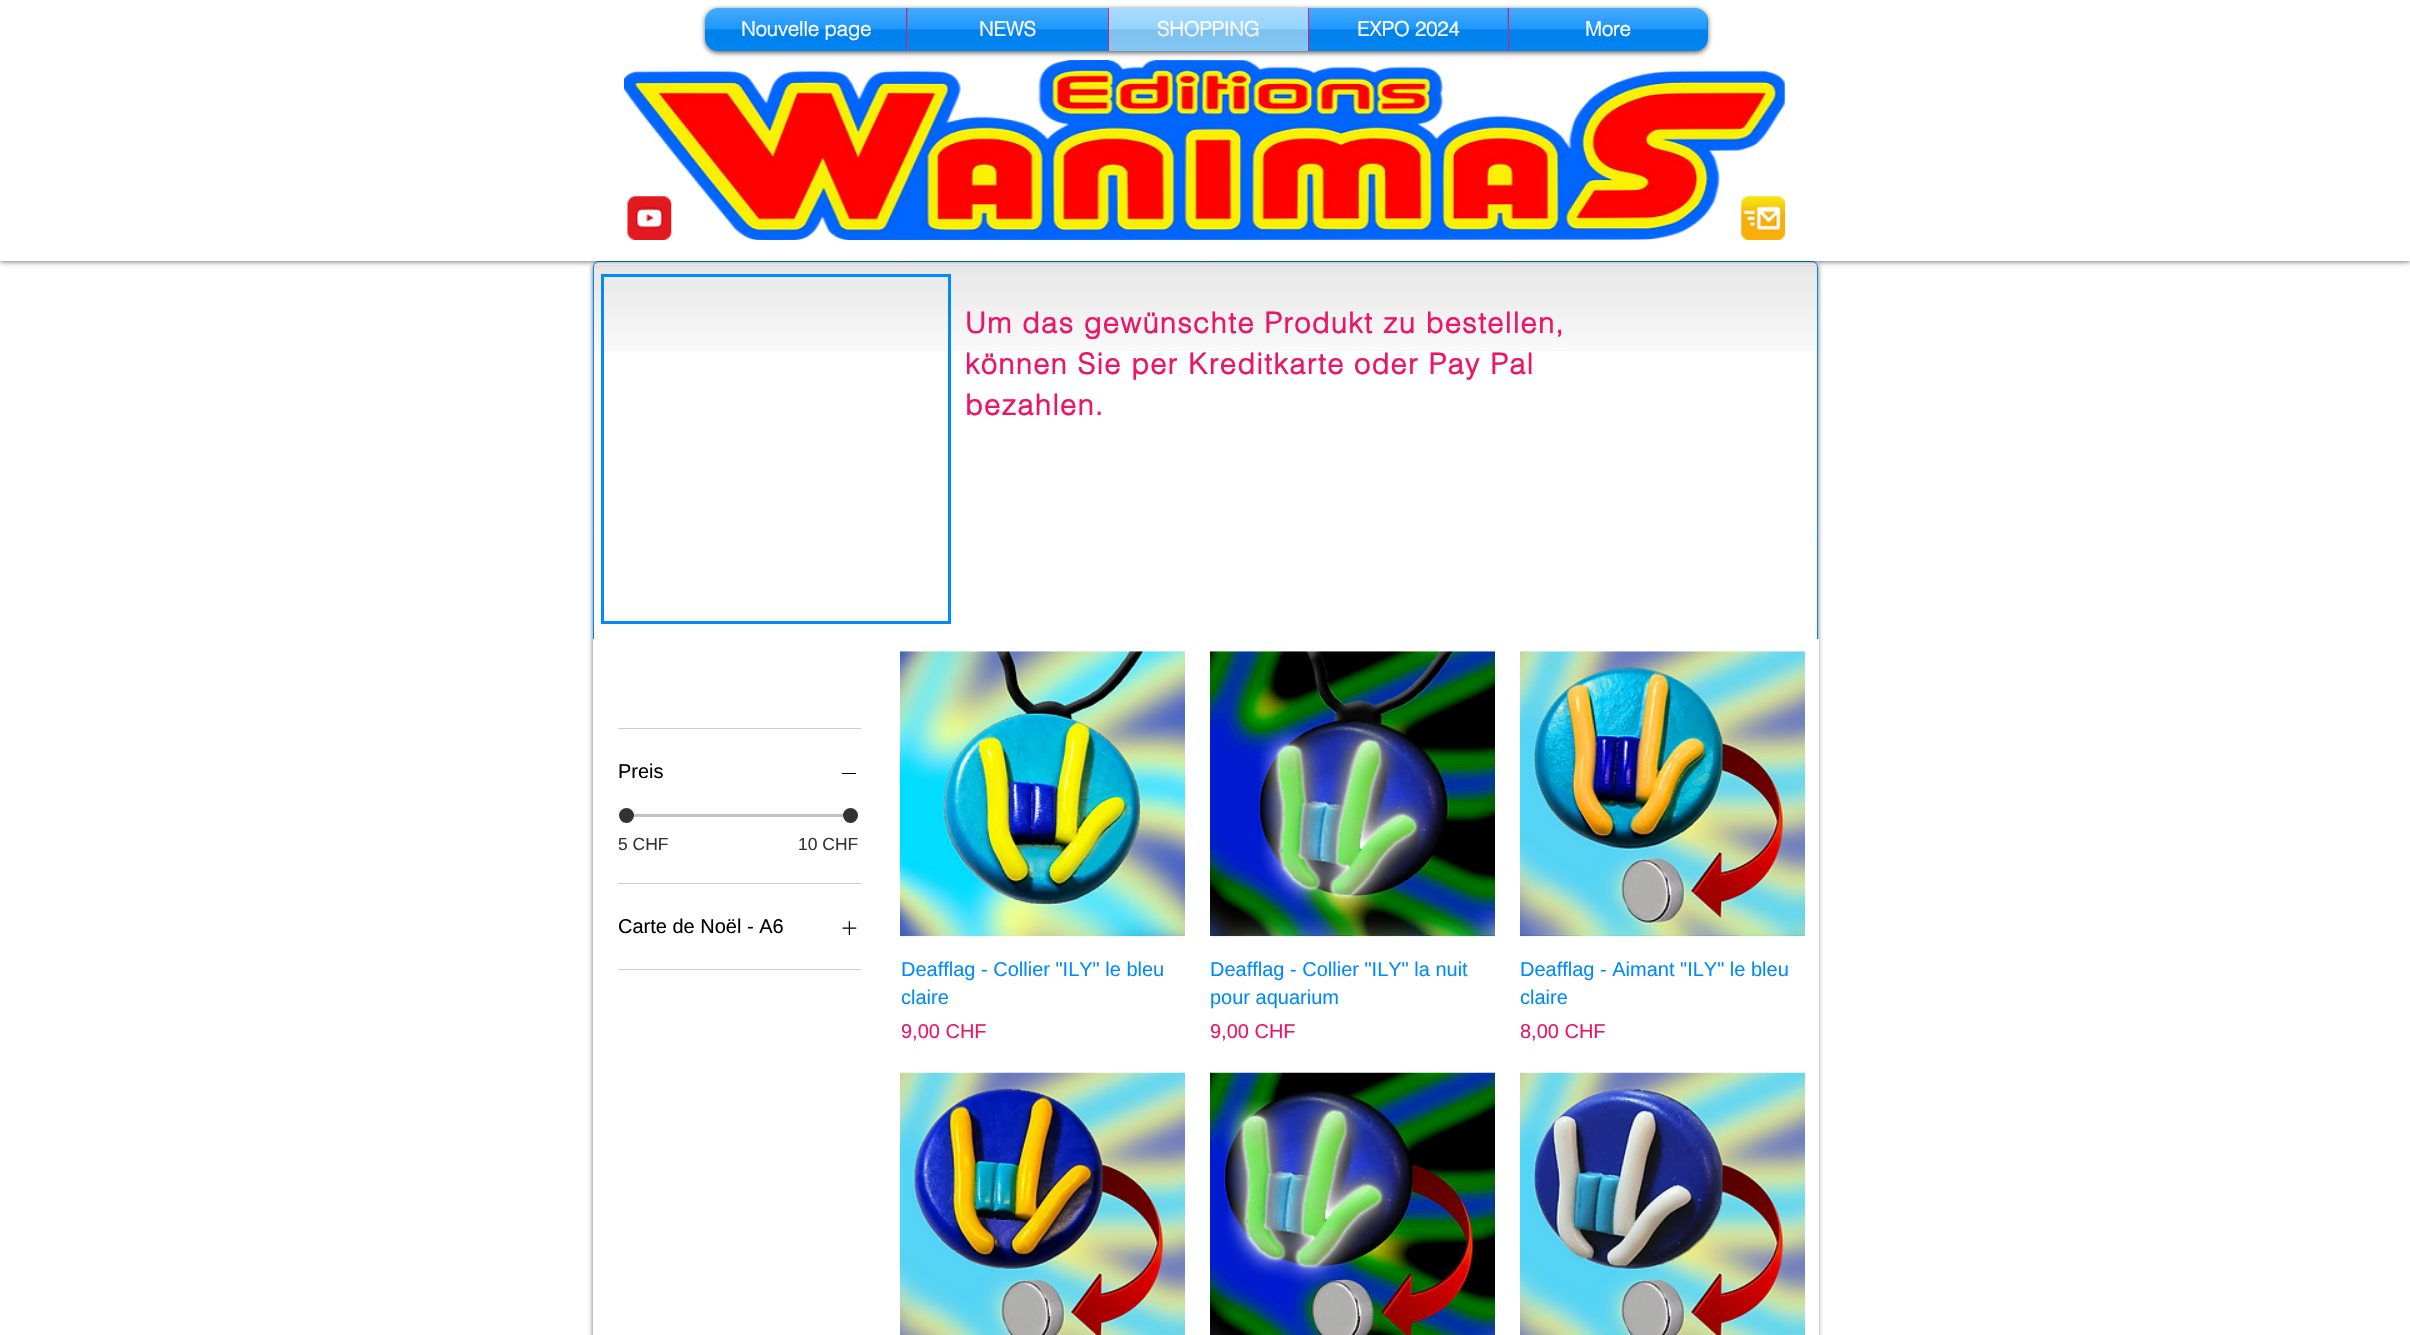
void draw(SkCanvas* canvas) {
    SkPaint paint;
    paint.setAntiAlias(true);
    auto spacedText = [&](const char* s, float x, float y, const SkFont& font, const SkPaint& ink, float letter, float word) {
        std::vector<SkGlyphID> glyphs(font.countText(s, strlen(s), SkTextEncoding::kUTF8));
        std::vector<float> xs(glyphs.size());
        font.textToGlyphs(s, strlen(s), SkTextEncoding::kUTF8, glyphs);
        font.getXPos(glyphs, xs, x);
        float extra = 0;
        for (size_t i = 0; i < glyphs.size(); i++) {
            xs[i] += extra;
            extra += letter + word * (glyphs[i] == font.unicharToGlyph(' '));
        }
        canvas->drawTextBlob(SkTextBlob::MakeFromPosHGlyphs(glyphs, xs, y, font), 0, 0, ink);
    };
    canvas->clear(0xFFFFFFFF);
    canvas->save();
    canvas->clipPath(SkPathBuilder(SkPathFillType::kEvenOdd).moveTo(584, 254).lineTo(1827, 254).lineTo(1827, 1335).lineTo(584, 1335).close().moveTo(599, 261).lineTo(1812, 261).cubicTo(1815.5f, 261, 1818, 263.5f, 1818, 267).lineTo(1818, 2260).cubicTo(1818, 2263.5f, 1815.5f, 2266, 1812, 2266).lineTo(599, 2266).cubicTo(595.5f, 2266, 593, 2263.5f, 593, 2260).lineTo(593, 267).cubicTo(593, 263.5f, 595.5f, 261, 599, 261).close().detach(), true);
    paint.setColor(0x99000000);
    paint.setMaskFilter(SkMaskFilter::MakeBlur(kNormal_SkBlurStyle, 2.5f));
    canvas->drawRoundRect(SkRect::MakeXYWH(593, 263, 1225, 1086), 6, 6, paint);
    paint.setMaskFilter(nullptr);
    canvas->restore();
    paint.setColor(0xCCFFFFFF);
    canvas->drawRoundRect(SkRect::MakeXYWH(593, 261, 1225, 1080), 6, 6, paint);
    canvas->drawImageRect(SkImages::DeferredFromEncodedData(SkData::MakeFromFileName("img10.png")), SkRect::MakeXYWH(592, 265, 1225, 86), SkSamplingOptions());
    paint.setStyle(SkPaint::kStroke_Style);
    paint.setStrokeWidth(1);
    paint.setColor(0xFF008AFC);
    canvas->drawRoundRect(SkRect::MakeXYWH(593.5f, 261.5f, 1224, 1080), 5.5f, 5.5f, paint);
    paint.setStyle(SkPaint::kFill_Style);
    paint.setColor(0xB3000000);
    paint.setMaskFilter(SkMaskFilter::MakeBlur(kNormal_SkBlurStyle, 3));
    canvas->drawRect(SkRect::MakeXYWH(0, 0, 2410, 261), paint);
    paint.setMaskFilter(nullptr);
    paint.setColor(0xFFFFFFFF);
    canvas->drawRect(SkRect::MakeXYWH(0, 0, 2410, 261), paint);
    paint.setColor(0x99000000);
    paint.setMaskFilter(SkMaskFilter::MakeBlur(kNormal_SkBlurStyle, 2.5f));
    canvas->drawRoundRect(SkRect::MakeXYWH(705, 9, 1003, 44), 13, 13, paint);
    paint.setMaskFilter(nullptr);
    canvas->drawImageRect(SkImages::DeferredFromEncodedData(SkData::MakeFromFileName("img1.png")), SkRect::MakeXYWH(705, 8, 1003, 43), SkSamplingOptions());
    paint.setColor(0xFF008AFC);
    canvas->drawPath(SkPathBuilder().moveTo(718, 8).lineTo(906, 8).lineTo(906, 51).lineTo(718, 51).cubicTo(711, 51, 705, 45, 705, 38).lineTo(705, 21).cubicTo(705, 14, 711, 8, 718, 8).close().detach(), paint);
    SkFont font1(fontMgr->matchFamilyStyle("helvetica", SkFontStyle::Bold()), 20);
    font1.setSubpixel(true);
    paint.setColor(0xFFFFFFFE);
    canvas->drawString("Nouvelle page", 741, 36, font1, paint);
    canvas->drawImageRect(SkImages::DeferredFromEncodedData(SkData::MakeFromFileName("img2.png")), SkRect::MakeXYWH(705, 8, 201, 43), SkSamplingOptions());
    paint.setColor(0xFF008AFC);
    canvas->drawRect(SkRect::MakeXYWH(907, 8, 201, 43), paint);
    paint.setColor(0xFFED1566);
    canvas->drawRect(SkRect::MakeXYWH(906, 8, 1, 43), paint);
    paint.setColor(0xFFFFFFFE);
    canvas->drawString("NEWS", 979, 36, font1, paint);
    canvas->drawImageRect(SkImages::DeferredFromEncodedData(SkData::MakeFromFileName("img3.png")), SkRect::MakeXYWH(907, 8, 201, 43), SkSamplingOptions());
    paint.setColor(0xFF87CFFF);
    canvas->drawRect(SkRect::MakeXYWH(1109, 8, 199, 43), paint);
    paint.setColor(0xFFED1566);
    canvas->drawRect(SkRect::MakeXYWH(1108, 8, 1, 43), paint);
    paint.setColor(0xFFFFFFFE);
    canvas->drawString("SHOPPING", 1157, 36, font1, paint);
    canvas->drawImageRect(SkImages::DeferredFromEncodedData(SkData::MakeFromFileName("img4.png")), SkRect::MakeXYWH(1108, 8, 200, 44), SkSamplingOptions());
    paint.setColor(0xFF008AFC);
    canvas->drawRect(SkRect::MakeXYWH(1309, 8, 199, 43), paint);
    paint.setColor(0xFFED1566);
    canvas->drawRect(SkRect::MakeXYWH(1308, 8, 1, 43), paint);
    paint.setColor(0xFFFFFFFE);
    canvas->drawString("EXPO 2024", 1357, 36, font1, paint);
    canvas->drawImageRect(SkImages::DeferredFromEncodedData(SkData::MakeFromFileName("img5.png")), SkRect::MakeXYWH(1308, 8, 200, 43), SkSamplingOptions());
    paint.setColor(0xFF008AFC);
    canvas->drawPath(SkPathBuilder().moveTo(1508, 8).lineTo(1695, 8).cubicTo(1702, 8, 1708, 14, 1708, 21).lineTo(1708, 38).cubicTo(1708, 45, 1702, 51, 1695, 51).lineTo(1508, 51).close().detach(), paint);
    paint.setColor(0xFFED1566);
    canvas->drawRect(SkRect::MakeXYWH(1508, 8, 1, 43), paint);
    paint.setColor(0xFFFFFFFE);
    canvas->drawString("More", 1585, 36, font1, paint);
    canvas->drawImageRect(SkImages::DeferredFromEncodedData(SkData::MakeFromFileName("img6.png")), SkRect::MakeXYWH(1509, 8, 199, 43), SkSamplingOptions());
    canvas->drawImageRect(SkImages::DeferredFromEncodedData(SkData::MakeFromFileName("img7.png")), SkRect::MakeXYWH(624, 60, 1161, 180), SkSamplingOptions());
    canvas->drawImageRect(SkImages::DeferredFromEncodedData(SkData::MakeFromFileName("img8.png")), SkRect::MakeXYWH(627, 196, 45, 44), SkSamplingOptions());
    canvas->drawImageRect(SkImages::DeferredFromEncodedData(SkData::MakeFromFileName("img9.png")), SkRect::MakeXYWH(1741, 196, 44, 44), SkSamplingOptions());
    paint.setStyle(SkPaint::kStroke_Style);
    paint.setStrokeWidth(3);
    paint.setColor(0xFF008AFC);
    canvas->drawRect(SkRect::MakeXYWH(602.5f, 275.5f, 347, 347), paint);
    SkFont font2(fontMgr->matchFamilyStyle("helvetica", SkFontStyle::Bold()), 28.75f);
    font2.setSubpixel(true);
    paint.setStyle(SkPaint::kFill_Style);
    paint.setColor(0xFFED1566);
    spacedText("Um das gewünschte Produkt zu bestellen,", 965, 333, font2, paint, 1.45f, 0);
    spacedText("können Sie per Kreditkarte oder Pay Pal", 965, 374, font2, paint, 1.45f, 0);
    spacedText("bezahlen.", 965, 415, font2, paint, 1.45f, 0);
    paint.setColor(0xFFFFFFFF);
    canvas->drawRect(SkRect::MakeXYWH(593, 639, 1226, 696), paint);
    paint.setColor(0xFFCCCCCC);
    canvas->drawRect(SkRect::MakeXYWH(618, 728, 243, 1), paint);
    canvas->drawRect(SkRect::MakeXYWH(618, 883, 243, 1), paint);
    SkFont font3(fontMgr->matchFamilyStyle("Liberation Sans", SkFontStyle::Normal()), 20);
    font3.setSubpixel(true);
    paint.setColor(0xFF000000);
    canvas->drawString("Preis", 618, 778, font3, paint);
    canvas->drawRect(SkRect::MakeXYWH(842, 773, 14, 1), paint);
    paint.setColor(0xFFC2C2C2);
    canvas->drawRect(SkRect::MakeXYWH(625, 814, 224, 3), paint);
    paint.setColor(0xFF333333);
    canvas->drawCircle(626.5f, 815.5f, 7.5f, paint);
    canvas->drawCircle(850.5f, 815.5f, 7.5f, paint);
    SkFont font4(fontMgr->matchFamilyStyle("Liberation Sans", SkFontStyle::Normal()), 17.5f);
    font4.setSubpixel(true);
    canvas->drawString("5 CHF", 618, 850, font4, paint);
    canvas->drawString("10 CHF", 798, 850, font4, paint);
    paint.setColor(0xFFCCCCCC);
    canvas->drawRect(SkRect::MakeXYWH(618, 969, 243, 1), paint);
    paint.setColor(0xFF000000);
    canvas->drawString("Carte de Noël - A6", 618, 933, font3, paint);
    canvas->drawImageRect(SkImages::DeferredFromEncodedData(SkData::MakeFromFileName("img11.png")), SkRect::MakeXYWH(842, 921, 15, 14), SkSamplingOptions());
    canvas->drawImageRect(SkImages::DeferredFromEncodedData(SkData::MakeFromFileName("img12.png")), SkRect::MakeXYWH(900, 651, 285, 286), SkSamplingOptions());
    paint.setColor(0xFF008AFC);
    canvas->drawString("Deafflag - Collier \"ILY\" le bleu", 901, 976, font3, paint);
    canvas->drawString("claire", 901, 1004, font3, paint);
    paint.setColor(0xFFED1566);
    canvas->drawString("9,00 CHF", 901, 1038, font3, paint);
    canvas->drawImageRect(SkImages::DeferredFromEncodedData(SkData::MakeFromFileName("img13.png")), SkRect::MakeXYWH(1210, 651, 285, 286), SkSamplingOptions());
    paint.setColor(0xFF008AFC);
    canvas->drawString("Deafflag - Collier \"ILY\" la nuit", 1210, 976, font3, paint);
    canvas->drawString("pour aquarium", 1210, 1004, font3, paint);
    paint.setColor(0xFFED1566);
    canvas->drawString("9,00 CHF", 1210, 1038, font3, paint);
    canvas->drawImageRect(SkImages::DeferredFromEncodedData(SkData::MakeFromFileName("img14.png")), SkRect::MakeXYWH(1520, 651, 285, 286), SkSamplingOptions());
    paint.setColor(0xFF008AFC);
    canvas->drawString("Deafflag - Aimant \"ILY\" le bleu", 1520, 976, font3, paint);
    canvas->drawString("claire", 1520, 1004, font3, paint);
    paint.setColor(0xFFED1566);
    canvas->drawString("8,00 CHF", 1520, 1038, font3, paint);
    canvas->drawImageRect(SkImages::DeferredFromEncodedData(SkData::MakeFromFileName("img15.png")), SkRect::MakeXYWH(900, 1072, 285, 263), SkSamplingOptions());
    canvas->drawImageRect(SkImages::DeferredFromEncodedData(SkData::MakeFromFileName("img16.png")), SkRect::MakeXYWH(1210, 1072, 285, 263), SkSamplingOptions());
    canvas->drawImageRect(SkImages::DeferredFromEncodedData(SkData::MakeFromFileName("img17.png")), SkRect::MakeXYWH(1520, 1072, 285, 263), SkSamplingOptions());
}
